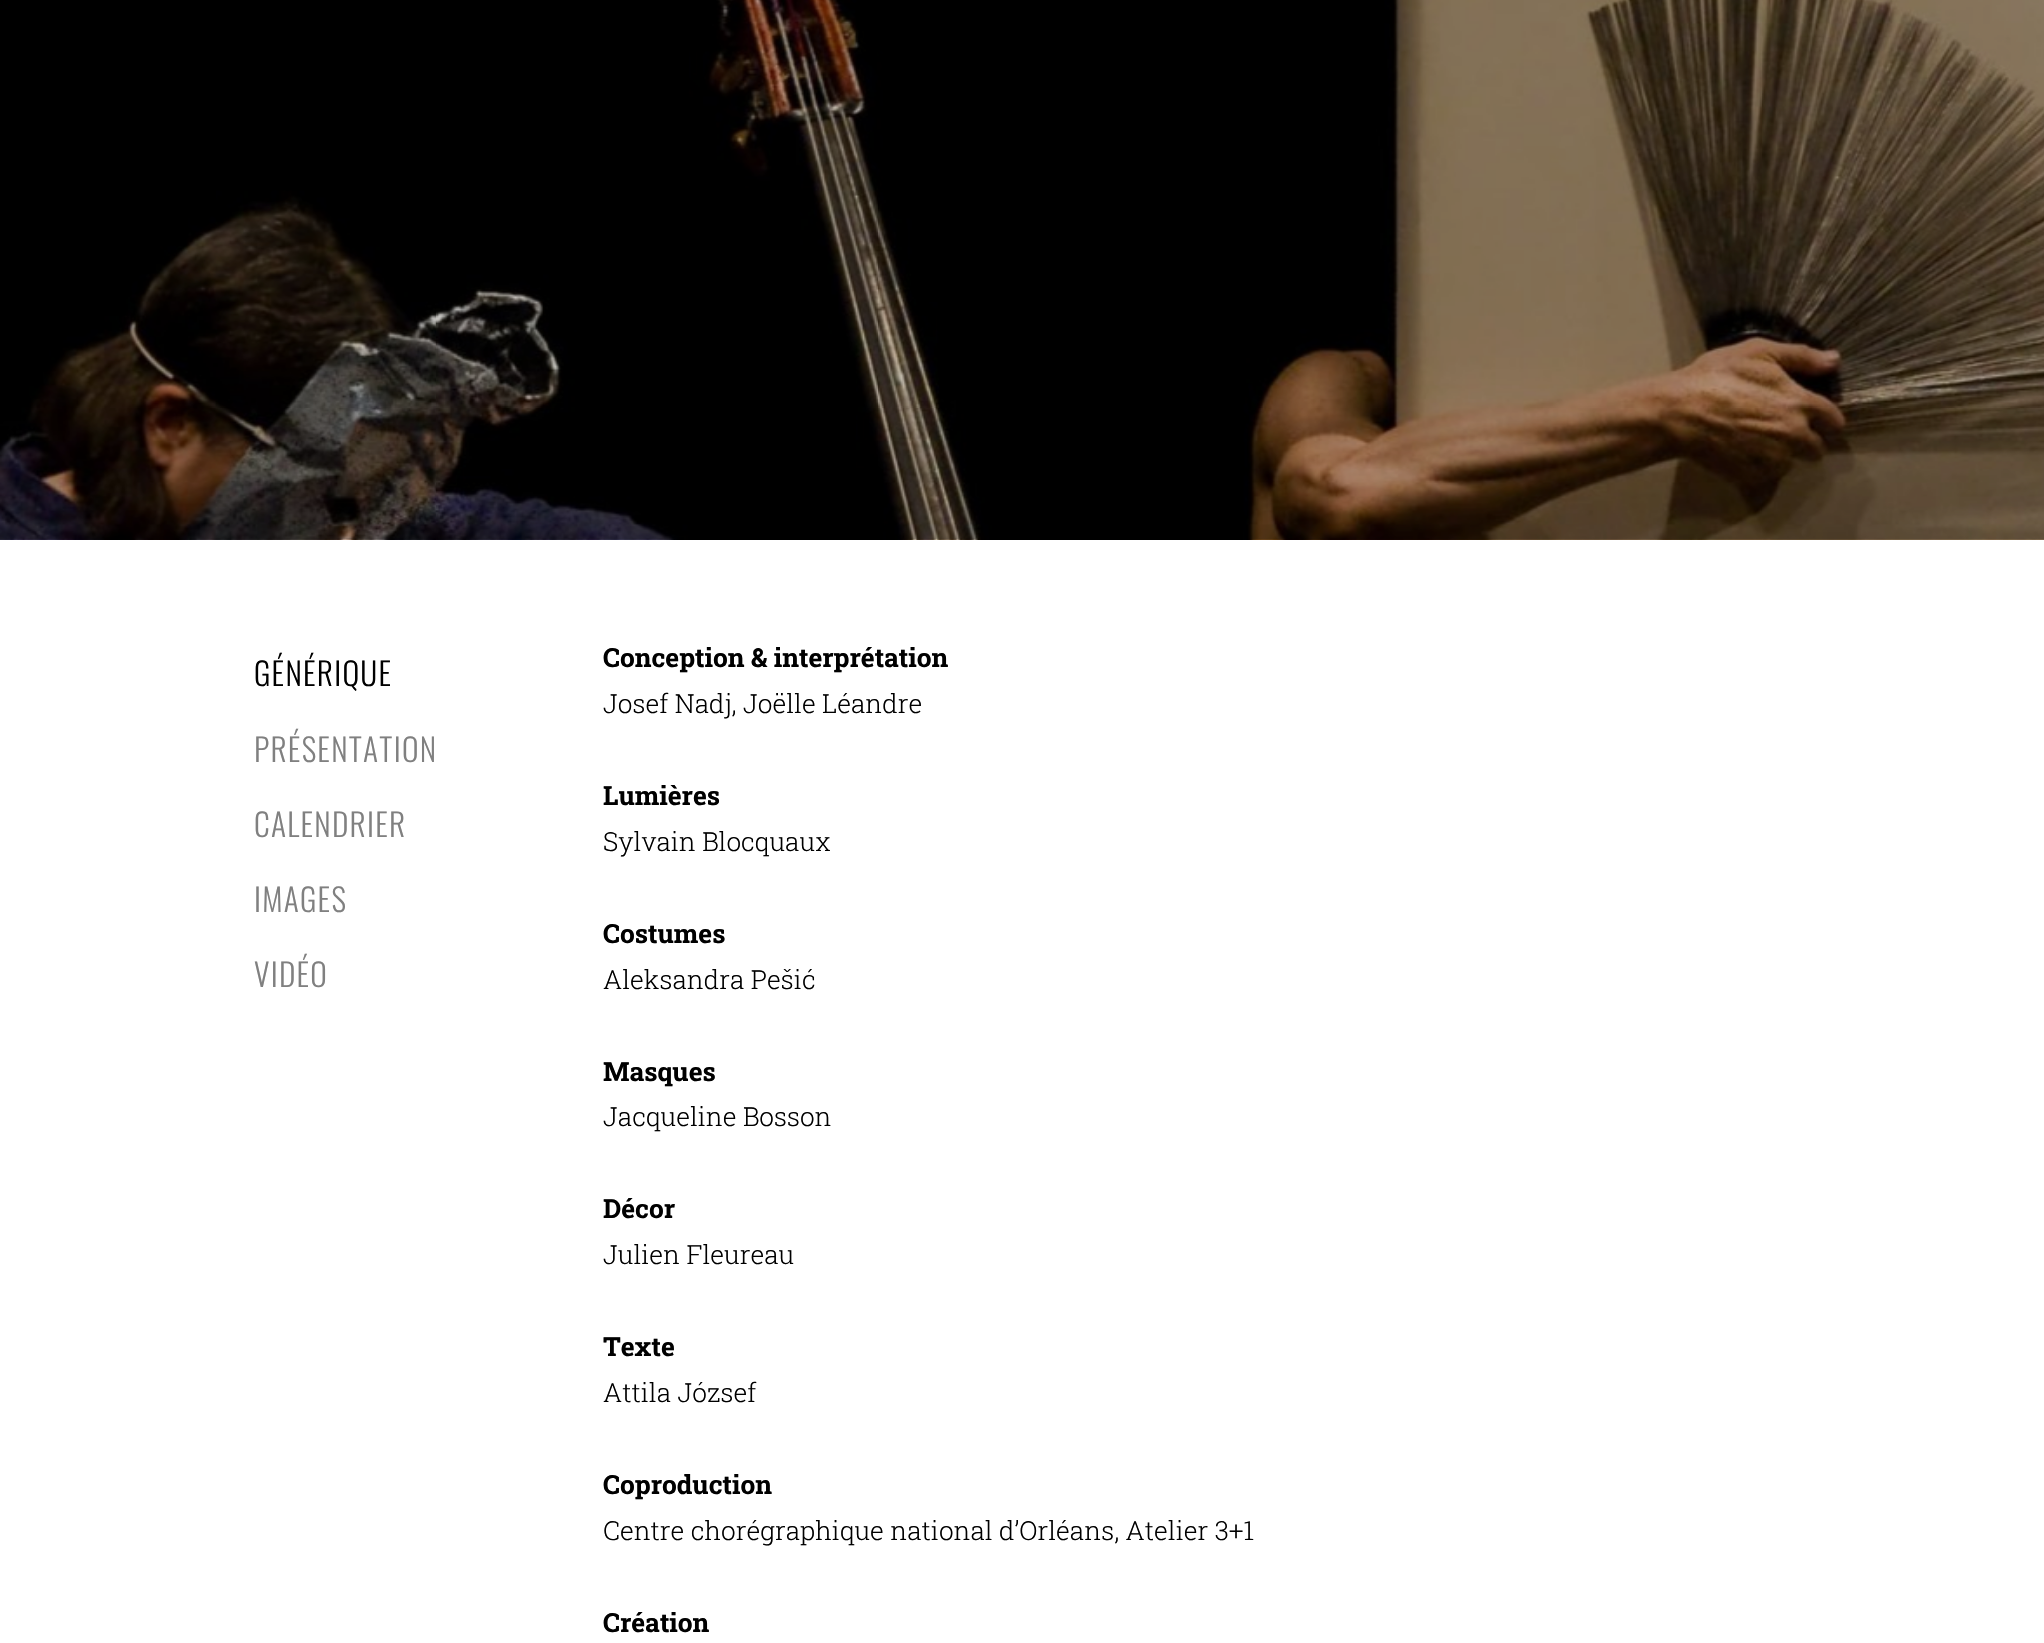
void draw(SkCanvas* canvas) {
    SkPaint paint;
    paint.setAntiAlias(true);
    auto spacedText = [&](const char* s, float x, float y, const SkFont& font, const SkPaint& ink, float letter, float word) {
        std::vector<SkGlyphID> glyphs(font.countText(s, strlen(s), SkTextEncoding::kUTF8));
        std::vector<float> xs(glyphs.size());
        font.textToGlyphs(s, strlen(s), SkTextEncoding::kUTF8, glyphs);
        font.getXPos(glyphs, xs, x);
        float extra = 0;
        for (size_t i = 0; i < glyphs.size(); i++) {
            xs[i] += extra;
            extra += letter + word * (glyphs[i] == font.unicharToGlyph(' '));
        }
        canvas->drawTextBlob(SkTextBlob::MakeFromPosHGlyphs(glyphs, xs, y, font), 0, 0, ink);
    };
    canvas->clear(0xFFFFFFFF);
    canvas->drawImageRect(SkImages::DeferredFromEncodedData(SkData::MakeFromFileName("img1.png")), SkRect::MakeXYWH(0, 0, 2044, 540), SkSamplingOptions());
    SkFont font1(fontMgr->matchFamilyStyle("Oswald", SkFontStyle(300, SkFontStyle::kNormal_Width, SkFontStyle::kUpright_Slant)), 31.5f);
    font1.setSubpixel(true);
    paint.setColor(0xFF000000);
    spacedText("GÉNÉRIQUE", 254, 686, font1, paint, 1.25f, 0);
    paint.setColor(0xFF808080);
    spacedText("PRÉSENTATION", 254, 762, font1, paint, 1.25f, 0);
    spacedText("CALENDRIER", 254, 837, font1, paint, 1.25f, 0);
    spacedText("IMAGES", 254, 912, font1, paint, 1.25f, 0);
    spacedText("VIDÉO", 254, 987, font1, paint, 1.25f, 0);
    SkFont font2(fontMgr->matchFamilyStyle("Roboto Slab", SkFontStyle::Bold()), 26.25f);
    font2.setSubpixel(true);
    paint.setColor(0xFF000000);
    canvas->drawString("Conception & interprétation", 603, 667, font2, paint);
    SkFont font3(fontMgr->matchFamilyStyle("Roboto Slab", SkFontStyle(300, SkFontStyle::kNormal_Width, SkFontStyle::kUpright_Slant)), 26.25f);
    font3.setSubpixel(true);
    canvas->drawString("Josef Nadj, Joëlle Léandre", 603, 713, font3, paint);
    canvas->drawString("Lumières", 603, 805, font2, paint);
    canvas->drawString("Sylvain Blocquaux", 603, 851, font3, paint);
    canvas->drawString("Costumes", 603, 943, font2, paint);
    canvas->drawString("Aleksandra Pešić", 603, 989, font3, paint);
    canvas->drawString("Masques", 603, 1081, font2, paint);
    canvas->drawString("Jacqueline Bosson", 603, 1126, font3, paint);
    canvas->drawString("Décor", 603, 1218, font2, paint);
    canvas->drawString("Julien Fleureau", 603, 1264, font3, paint);
    canvas->drawString("Texte", 603, 1356, font2, paint);
    canvas->drawString("Attila József", 603, 1402, font3, paint);
    canvas->drawString("Coproduction", 603, 1494, font2, paint);
    canvas->drawString("Centre chorégraphique national d’Orléans, Atelier 3+1", 603, 1540, font3, paint);
    canvas->drawString("Création", 603, 1632, font2, paint);
}
